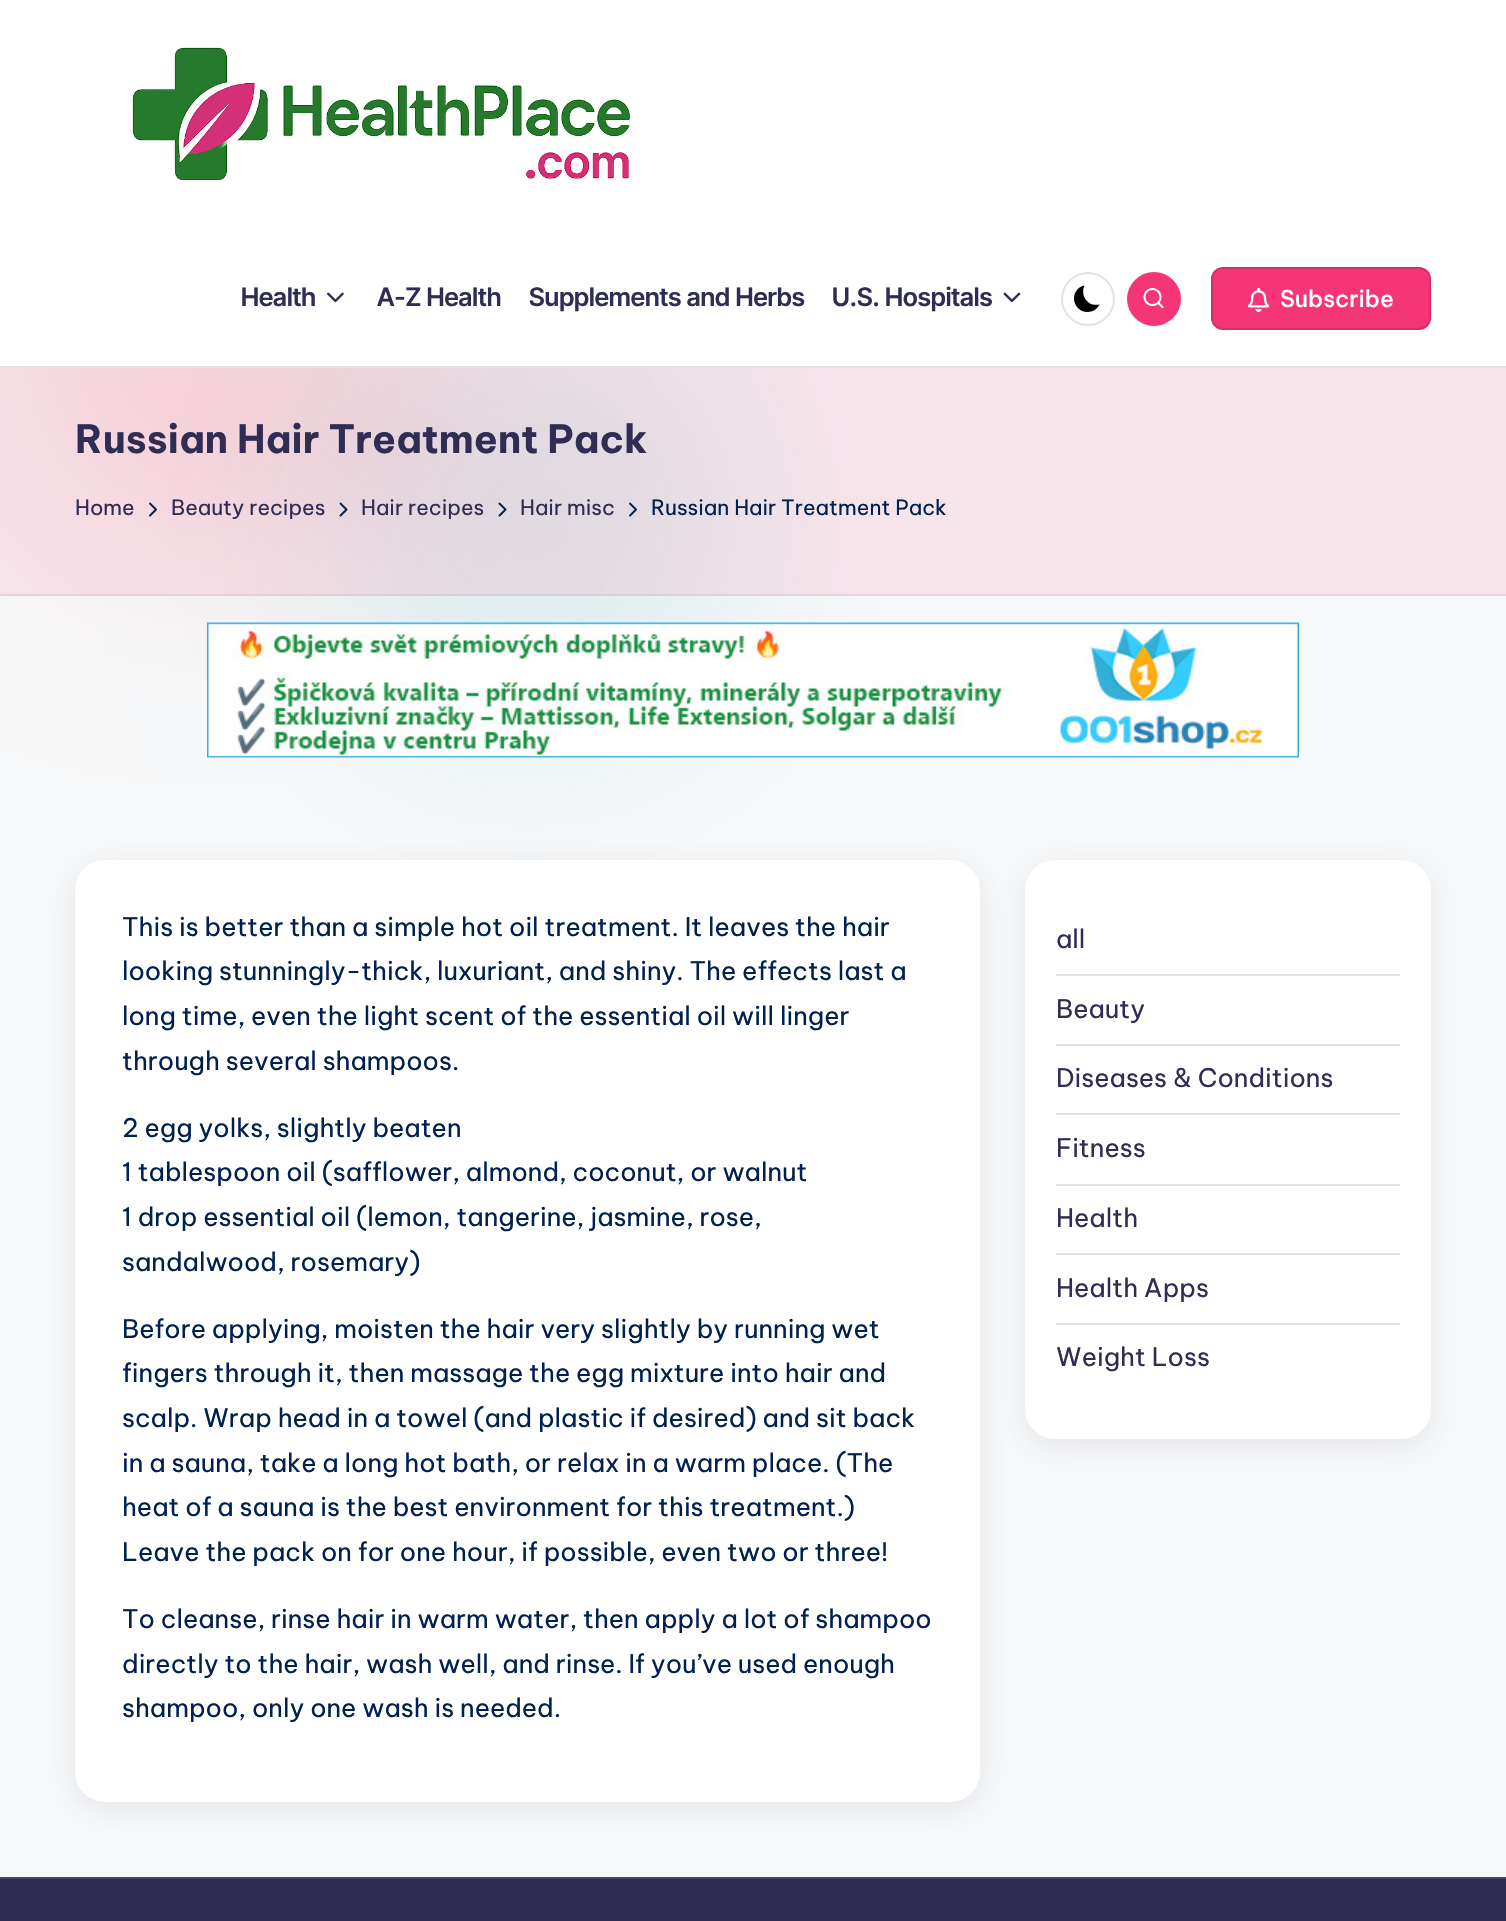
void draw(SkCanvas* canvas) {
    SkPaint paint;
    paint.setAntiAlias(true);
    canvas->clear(0xFFF7F8F9);
    paint.setColor(0xFFF7E3E5);
    paint.setMaskFilter(SkMaskFilter::MakeBlur(kNormal_SkBlurStyle, 96));
    canvas->drawRoundRect(SkRect::MakeXYWH(0, 135, 432, 432), 216, 216, paint);
    paint.setMaskFilter(nullptr);
    paint.setColor(0x1A04868B);
    paint.setMaskFilter(SkMaskFilter::MakeBlur(kNormal_SkBlurStyle, 96));
    canvas->drawRoundRect(SkRect::MakeXYWH(312, 300, 432, 432), 216, 216, paint);
    paint.setMaskFilter(nullptr);
    paint.setColor(0xFFFFFFFF);
    canvas->drawRect(SkRect::MakeXYWH(0, 0, 1506, 366), paint);
    paint.setColor(0xFFE3E3E3);
    canvas->drawRect(SkRect::MakeXYWH(0, 366, 1506, 2), paint);
    canvas->drawImageRect(SkImages::DeferredFromEncodedData(SkData::MakeFromFileName("img1.png")), SkRect::MakeXYWH(132, 46, 498, 135), SkSamplingOptions());
    SkFont font1(fontMgr->matchFamilyStyle("Inter Tight", SkFontStyle(600, SkFontStyle::kNormal_Width, SkFontStyle::kUpright_Slant)), 25.5f);
    font1.setSubpixel(true);
    paint.setColor(0xFF302D55);
    canvas->drawString("Health", 241, 306, font1, paint);
    canvas->drawImageRect(SkImages::DeferredFromEncodedData(SkData::MakeFromFileName("img2.png")), SkRect::MakeXYWH(327, 292, 17, 11), SkSamplingOptions());
    canvas->drawString("A-Z Health", 377, 306, font1, paint);
    canvas->drawString("Supplements and Herbs", 529, 306, font1, paint);
    canvas->drawString("U.S. Hospitals", 832, 306, font1, paint);
    canvas->drawImageRect(SkImages::DeferredFromEncodedData(SkData::MakeFromFileName("img3.png")), SkRect::MakeXYWH(1003, 292, 18, 11), SkSamplingOptions());
    paint.setStyle(SkPaint::kStroke_Style);
    paint.setStrokeWidth(2);
    paint.setColor(0xFFE3E3E3);
    canvas->drawCircle(1088, 299, 26, paint);
    paint.setStyle(SkPaint::kFill_Style);
    paint.setColor(0xFF000000);
    canvas->drawPath(SkPathBuilder().moveTo(1099.5f, 304.5f).cubicTo(1088, 307, 1080, 296, 1084.5f, 285.5f).cubicTo(1078.5f, 286.5f, 1074, 292, 1074, 298.5f).cubicTo(1074, 306, 1080, 312, 1087.5f, 312).cubicTo(1093, 312, 1097.5f, 309, 1099.5f, 304.5f).close().detach(), paint);
    paint.setColor(0xFFF43676);
    canvas->drawCircle(1154, 299, 27, paint);
    canvas->drawImageRect(SkImages::DeferredFromEncodedData(SkData::MakeFromFileName("img4.png")), SkRect::MakeXYWH(1143, 288, 21, 21), SkSamplingOptions());
    canvas->drawRoundRect(SkRect::MakeXYWH(1211, 267, 220, 63), 12, 12, paint);
    paint.setStyle(SkPaint::kStroke_Style);
    paint.setColor(0x1F000000);
    canvas->drawRoundRect(SkRect::MakeXYWH(1212, 268, 218, 61), 11, 11, paint);
    canvas->drawImageRect(SkImages::DeferredFromEncodedData(SkData::MakeFromFileName("img5.png")), SkRect::MakeXYWH(1248, 287, 22, 25), SkSamplingOptions());
    SkFont font2(fontMgr->matchFamilyStyle("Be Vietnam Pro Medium", SkFontStyle(500, SkFontStyle::kNormal_Width, SkFontStyle::kUpright_Slant)), 23);
    font2.setSubpixel(true);
    paint.setStyle(SkPaint::kFill_Style);
    paint.setColor(0xFFFFFFFF);
    canvas->drawString("Subscribe", 1280, 307, font2, paint);
    paint.setColor(0x1AF43676);
    canvas->drawRect(SkRect::MakeXYWH(0, 368, 1506, 228), paint);
    paint.setColor(0x0F000000);
    canvas->drawRect(SkRect::MakeXYWH(0, 594, 1506, 2), paint);
    SkFont font3(fontMgr->matchFamilyStyle("Be Vietnam Pro", SkFontStyle::Bold()), 39);
    font3.setSubpixel(true);
    paint.setColor(0xFF302D55);
    canvas->drawString("Russian Hair Treatment Pack", 75, 453, font3, paint);
    SkFont font4(fontMgr->matchFamilyStyle("Be Vietnam Pro", SkFontStyle::Normal()), 21);
    font4.setSubpixel(true);
    canvas->drawString("Home", 75, 515, font4, paint);
    canvas->drawImageRect(SkImages::DeferredFromEncodedData(SkData::MakeFromFileName("img6.png")), SkRect::MakeXYWH(149, 502, 8, 15), SkSamplingOptions());
    canvas->drawString("Beauty recipes", 171, 515, font4, paint);
    canvas->drawImageRect(SkImages::DeferredFromEncodedData(SkData::MakeFromFileName("img7.png")), SkRect::MakeXYWH(339, 502, 9, 15), SkSamplingOptions());
    canvas->drawString("Hair recipes", 361, 515, font4, paint);
    canvas->drawImageRect(SkImages::DeferredFromEncodedData(SkData::MakeFromFileName("img8.png")), SkRect::MakeXYWH(498, 502, 9, 15), SkSamplingOptions());
    canvas->drawString("Hair misc", 520, 515, font4, paint);
    canvas->drawImageRect(SkImages::DeferredFromEncodedData(SkData::MakeFromFileName("img9.png")), SkRect::MakeXYWH(629, 502, 8, 15), SkSamplingOptions());
    paint.setColor(0xFF002050);
    canvas->drawString("Russian Hair Treatment Pack", 651, 515, font4, paint);
    canvas->drawImageRect(SkImages::DeferredFromEncodedData(SkData::MakeFromFileName("img10.png")), SkRect::MakeXYWH(207, 622, 1092, 136), SkSamplingOptions());
    paint.setColor(0x1A454360);
    paint.setMaskFilter(SkMaskFilter::MakeBlur(kNormal_SkBlurStyle, 15));
    canvas->drawRoundRect(SkRect::MakeXYWH(75, 867, 905, 942), 30, 30, paint);
    paint.setMaskFilter(nullptr);
    paint.setColor(0xFFFFFFFF);
    canvas->drawRoundRect(SkRect::MakeXYWH(75, 860, 905, 942), 30, 30, paint);
    SkFont font5(fontMgr->matchFamilyStyle("Be Vietnam Pro", SkFontStyle::Normal()), 25.5f);
    font5.setSubpixel(true);
    paint.setColor(0xFF002050);
    canvas->drawString("This is better than a simple hot oil treatment. It leaves the hair", 122, 936, font5, paint);
    canvas->drawString("looking stunningly-thick, luxuriant, and shiny. The effects last a", 122, 980, font5, paint);
    canvas->drawString("long time, even the light scent of the essential oil will linger", 122, 1025, font5, paint);
    canvas->drawString("through several shampoos.", 122, 1070, font5, paint);
    canvas->drawString("2 egg yolks, slightly beaten", 122, 1137, font5, paint);
    canvas->drawString("1 tablespoon oil (safflower, almond, coconut, or walnut", 122, 1181, font5, paint);
    canvas->drawString("1 drop essential oil (lemon, tangerine, jasmine, rose,", 122, 1226, font5, paint);
    canvas->drawString("sandalwood, rosemary)", 122, 1271, font5, paint);
    canvas->drawString("Before applying, moisten the hair very slightly by running wet", 122, 1338, font5, paint);
    canvas->drawString("fingers through it, then massage the egg mixture into hair and", 122, 1382, font5, paint);
    canvas->drawString("scalp. Wrap head in a towel (and plastic if desired) and sit back", 122, 1427, font5, paint);
    canvas->drawString("in a sauna, take a long hot bath, or relax in a warm place. (The", 122, 1472, font5, paint);
    canvas->drawString("heat of a sauna is the best environment for this treatment.)", 122, 1516, font5, paint);
    canvas->drawString("Leave the pack on for one hour, if possible, even two or three!", 122, 1561, font5, paint);
    canvas->drawString("To cleanse, rinse hair in warm water, then apply a lot of shampoo", 122, 1628, font5, paint);
    canvas->drawString("directly to the hair, wash well, and rinse. If you’ve used enough", 122, 1673, font5, paint);
    canvas->drawString("shampoo, only one wash is needed.", 122, 1717, font5, paint);
    paint.setColor(0x1A454360);
    paint.setMaskFilter(SkMaskFilter::MakeBlur(kNormal_SkBlurStyle, 15));
    canvas->drawRoundRect(SkRect::MakeXYWH(1025, 867, 406, 579), 30, 30, paint);
    paint.setMaskFilter(nullptr);
    paint.setColor(0xFFFFFFFF);
    canvas->drawRoundRect(SkRect::MakeXYWH(1025, 860, 406, 579), 30, 30, paint);
    paint.setColor(0xFF302D55);
    canvas->drawString("all", 1056, 948, font5, paint);
    paint.setColor(0xFFE3E3E3);
    canvas->drawRect(SkRect::MakeXYWH(1056, 974, 344, 2), paint);
    paint.setColor(0xFF302D55);
    canvas->drawString("Beauty", 1056, 1018, font5, paint);
    paint.setColor(0xFFE3E3E3);
    canvas->drawRect(SkRect::MakeXYWH(1056, 1044, 344, 2), paint);
    paint.setColor(0xFF302D55);
    canvas->drawString("Diseases & Conditions", 1056, 1087, font5, paint);
    paint.setColor(0xFFE3E3E3);
    canvas->drawRect(SkRect::MakeXYWH(1056, 1113, 344, 2), paint);
    paint.setColor(0xFF302D55);
    canvas->drawString("Fitness", 1056, 1157, font5, paint);
    paint.setColor(0xFFE3E3E3);
    canvas->drawRect(SkRect::MakeXYWH(1056, 1184, 344, 2), paint);
    paint.setColor(0xFF302D55);
    canvas->drawString("Health", 1056, 1227, font5, paint);
    paint.setColor(0xFFE3E3E3);
    canvas->drawRect(SkRect::MakeXYWH(1056, 1253, 344, 2), paint);
    paint.setColor(0xFF302D55);
    canvas->drawString("Health Apps", 1056, 1297, font5, paint);
    paint.setColor(0xFFE3E3E3);
    canvas->drawRect(SkRect::MakeXYWH(1056, 1323, 344, 2), paint);
    paint.setColor(0xFF302D55);
    canvas->drawString("Weight Loss", 1056, 1366, font5, paint);
    canvas->drawRect(SkRect::MakeXYWH(0, 1879, 1506, 42), paint);
    paint.setColor(0xFF454266);
    canvas->drawRect(SkRect::MakeXYWH(0, 1877, 1506, 2), paint);
}
